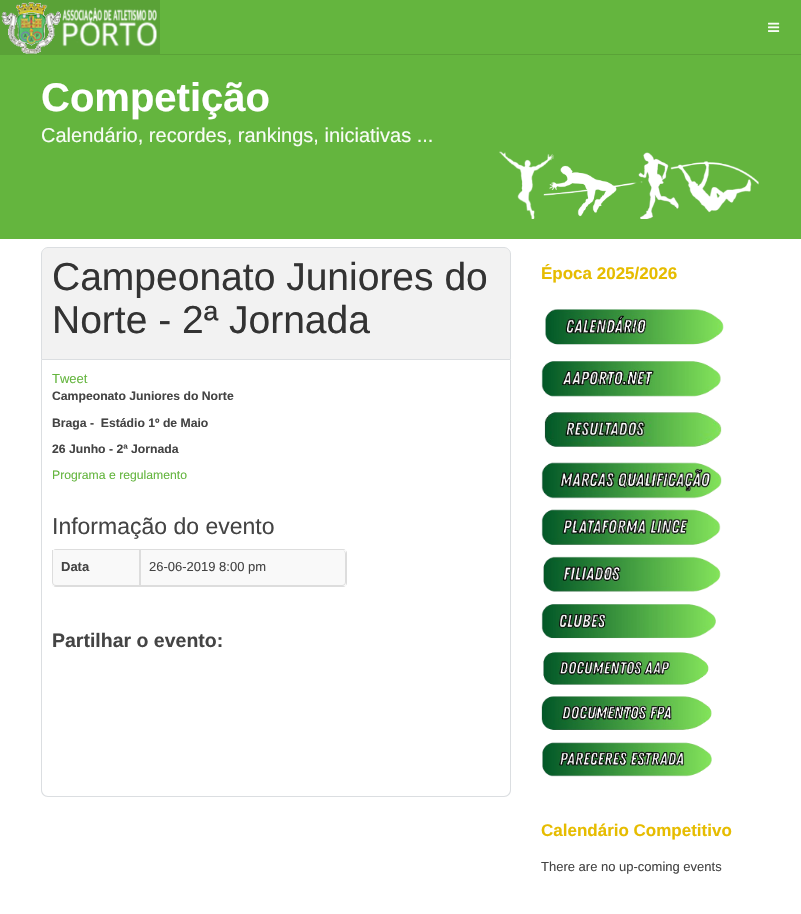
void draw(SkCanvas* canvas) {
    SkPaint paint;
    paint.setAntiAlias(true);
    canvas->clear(0xFFFFFFFF);
    paint.setColor(0xFF64B53E);
    canvas->drawRect(SkRect::MakeXYWH(160, 0, 641, 54), paint);
    paint.setColor(0xFF5AA237);
    canvas->drawRect(SkRect::MakeXYWH(160, 54, 641, 1), paint);
    canvas->drawRect(SkRect::MakeXYWH(0, 0, 160, 55), paint);
    canvas->drawImageRect(SkImages::DeferredFromEncodedData(SkData::MakeFromFileName("img1.png")), SkRect::MakeXYWH(1, 2, 156, 52), SkSamplingOptions());
    canvas->drawImageRect(SkImages::DeferredFromEncodedData(SkData::MakeFromFileName("img2.png")), SkRect::MakeXYWH(768, 22, 12, 10), SkSamplingOptions());
    paint.setColor(0xFF64B53E);
    canvas->drawRect(SkRect::MakeXYWH(0, 55, 801, 184), paint);
    SkFont font1(fontMgr->matchFamilyStyle("Liberation Sans", SkFontStyle::Bold()), 40);
    font1.setSubpixel(true);
    paint.setColor(0xFFFFFFFF);
    canvas->drawString("Competição", 41, 111, font1, paint);
    SkFont font2(fontMgr->matchFamilyStyle("Liberation Sans", SkFontStyle::Normal()), 20);
    font2.setSubpixel(true);
    paint.setColor(0xFFF8FCF6);
    canvas->drawString("Calendário, recordes, rankings, iniciativas ...", 41, 142, font2, paint);
    canvas->drawImageRect(SkImages::DeferredFromEncodedData(SkData::MakeFromFileName("img3.png")), SkRect::MakeXYWH(499, 151, 260, 68), SkSamplingOptions());
    paint.setColor(0xFFF2F2F2);
    canvas->drawPath(SkPathBuilder().moveTo(48, 247.5f).lineTo(504, 247.5f).cubicTo(507.5f, 247.5f, 510.5f, 250.5f, 510.5f, 254).lineTo(510.5f, 359.5f).lineTo(41.5f, 359.5f).lineTo(41.5f, 254).cubicTo(41.5f, 250.5f, 44.5f, 247.5f, 48, 247.5f).close().detach(), paint);
    paint.setStyle(SkPaint::kStroke_Style);
    paint.setStrokeWidth(1);
    paint.setColor(0xFFDBDEE1);
    canvas->drawPath(SkPathBuilder().moveTo(48, 247.5f).lineTo(504, 247.5f).cubicTo(507.5f, 247.5f, 510.5f, 250.5f, 510.5f, 254).lineTo(510.5f, 359.5f).lineTo(41.5f, 359.5f).lineTo(41.5f, 254).cubicTo(41.5f, 250.5f, 44.5f, 247.5f, 48, 247.5f).close().detach(), paint);
    SkFont font3(fontMgr->matchFamilyStyle("Liberation Sans", SkFontStyle::Normal()), 39);
    font3.setSubpixel(true);
    paint.setStyle(SkPaint::kFill_Style);
    paint.setColor(0xFF333333);
    canvas->drawString("Campeonato Juniores do", 52, 290, font3, paint);
    canvas->drawString("Norte - 2ª Jornada", 52, 333, font3, paint);
    paint.setColor(0xFFDBDEE1);
    canvas->drawPath(SkPathBuilder(SkPathFillType::kEvenOdd).moveTo(41, 360).lineTo(511, 360).lineTo(511, 790).cubicTo(511, 794, 508, 797, 504, 797).lineTo(48, 797).cubicTo(44, 797, 41, 794, 41, 790).close().moveTo(42, 360).lineTo(510, 360).lineTo(510, 790).cubicTo(510, 793, 507, 796, 504, 796).lineTo(48, 796).cubicTo(45, 796, 42, 793, 42, 790).close().detach(), paint);
    SkFont font4(fontMgr->matchFamilyStyle("Liberation Sans", SkFontStyle::Normal()), 13);
    font4.setSubpixel(true);
    paint.setColor(0xFF64B53E);
    canvas->drawString("Tweet", 52, 383, font4, paint);
    SkFont font5(fontMgr->matchFamilyStyle("Liberation Sans", SkFontStyle::Bold()), 12.2f);
    font5.setSubpixel(true);
    paint.setColor(0xFF444444);
    canvas->drawString("Campeonato Juniores do Norte", 52, 400, font5, paint);
    canvas->drawString("Braga -  Estádio 1º de Maio", 52, 427, font5, paint);
    canvas->drawString("26 Junho - 2ª Jornada", 52, 453, font5, paint);
    SkFont font6(fontMgr->matchFamilyStyle("Liberation Sans", SkFontStyle::Normal()), 12.2f);
    font6.setSubpixel(true);
    paint.setColor(0xFF64B53E);
    canvas->drawString("Programa e regulamento", 52, 479, font6, paint);
    SkFont font7(fontMgr->matchFamilyStyle("Liberation Sans", SkFontStyle::Normal()), 23);
    font7.setSubpixel(true);
    paint.setColor(0xFF444444);
    canvas->drawString("Informação do evento", 52, 534, font7, paint);
    paint.setColor(0xFFDDDDDD);
    canvas->drawPath(SkPathBuilder(SkPathFillType::kEvenOdd).moveTo(56, 549).lineTo(343, 549).cubicTo(345, 549, 347, 551, 347, 553).lineTo(347, 583).cubicTo(347, 585, 345, 587, 343, 587).lineTo(56, 587).cubicTo(54, 587, 52, 585, 52, 583).lineTo(52, 553).cubicTo(52, 551, 54, 549, 56, 549).close().moveTo(56, 550).lineTo(343, 550).cubicTo(345, 550, 346, 551, 346, 553).lineTo(346, 583).cubicTo(346, 585, 345, 586, 343, 586).lineTo(56, 586).cubicTo(54, 586, 52, 585, 52, 583).lineTo(52, 553).cubicTo(52, 551, 54, 550, 56, 550).close().detach(), paint);
    paint.setColor(0xFFF9F9F9);
    canvas->drawRect(SkRect::MakeXYWH(52, 550, 294, 36), paint);
    paint.setColor(0xFFDDDDDD);
    canvas->drawPath(SkPathBuilder(SkPathFillType::kEvenOdd).moveTo(52, 550).lineTo(140, 550).lineTo(140, 586).lineTo(56, 586).cubicTo(54, 586, 52, 584, 52, 582).close().moveTo(53, 550).lineTo(139, 550).lineTo(139, 585).lineTo(56, 585).cubicTo(54, 585, 53, 584, 53, 582).close().detach(), paint);
    SkFont font8(fontMgr->matchFamilyStyle("Liberation Sans", SkFontStyle::Bold()), 13);
    font8.setSubpixel(true);
    paint.setColor(0xFF444444);
    canvas->drawString("Data", 61, 571, font8, paint);
    paint.setColor(0xFFDDDDDD);
    canvas->drawPath(SkPathBuilder(SkPathFillType::kEvenOdd).moveTo(140, 550).lineTo(342, 550).cubicTo(344, 550, 346, 552, 346, 554).lineTo(346, 582).cubicTo(346, 584, 344, 586, 342, 586).lineTo(140, 586).close().moveTo(141, 550).lineTo(342, 550).cubicTo(344, 550, 345, 552, 345, 554).lineTo(345, 582).cubicTo(345, 584, 344, 585, 342, 585).lineTo(141, 585).close().detach(), paint);
    paint.setColor(0xFF444444);
    canvas->drawString("26-06-2019 8:00 pm", 149, 571, font4, paint);
    SkFont font9(fontMgr->matchFamilyStyle("Liberation Sans", SkFontStyle::Bold()), 19.5f);
    font9.setSubpixel(true);
    canvas->drawString("Partilhar o evento:", 52, 647, font9, paint);
    SkFont font10(fontMgr->matchFamilyStyle("Liberation Sans", SkFontStyle::Bold()), 17);
    font10.setSubpixel(true);
    paint.setColor(0xFFE6BC00);
    canvas->drawString("Época 2025/2026", 541, 279, font10, paint);
    canvas->drawImageRect(SkImages::DeferredFromEncodedData(SkData::MakeFromFileName("img4.png")), SkRect::MakeXYWH(545, 309, 179, 36), SkSamplingOptions());
    canvas->drawImageRect(SkImages::DeferredFromEncodedData(SkData::MakeFromFileName("img5.png")), SkRect::MakeXYWH(541, 361, 180, 36), SkSamplingOptions());
    canvas->drawImageRect(SkImages::DeferredFromEncodedData(SkData::MakeFromFileName("img6.png")), SkRect::MakeXYWH(544, 412, 178, 35), SkSamplingOptions());
    canvas->drawImageRect(SkImages::DeferredFromEncodedData(SkData::MakeFromFileName("img7.png")), SkRect::MakeXYWH(541, 462, 181, 37), SkSamplingOptions());
    canvas->drawImageRect(SkImages::DeferredFromEncodedData(SkData::MakeFromFileName("img8.png")), SkRect::MakeXYWH(541, 509, 180, 36), SkSamplingOptions());
    canvas->drawImageRect(SkImages::DeferredFromEncodedData(SkData::MakeFromFileName("img9.png")), SkRect::MakeXYWH(543, 556, 178, 36), SkSamplingOptions());
    canvas->drawImageRect(SkImages::DeferredFromEncodedData(SkData::MakeFromFileName("img10.png")), SkRect::MakeXYWH(541, 604, 175, 35), SkSamplingOptions());
    canvas->drawImageRect(SkImages::DeferredFromEncodedData(SkData::MakeFromFileName("img11.png")), SkRect::MakeXYWH(543, 652, 166, 33), SkSamplingOptions());
    canvas->drawImageRect(SkImages::DeferredFromEncodedData(SkData::MakeFromFileName("img12.png")), SkRect::MakeXYWH(541, 696, 171, 34), SkSamplingOptions());
    canvas->drawImageRect(SkImages::DeferredFromEncodedData(SkData::MakeFromFileName("img13.png")), SkRect::MakeXYWH(542, 742, 170, 35), SkSamplingOptions());
    canvas->drawString("Calendário Competitivo", 541, 836, font10, paint);
    paint.setColor(0xFF444444);
    canvas->drawString("There are no up-coming events", 541, 871, font4, paint);
}
